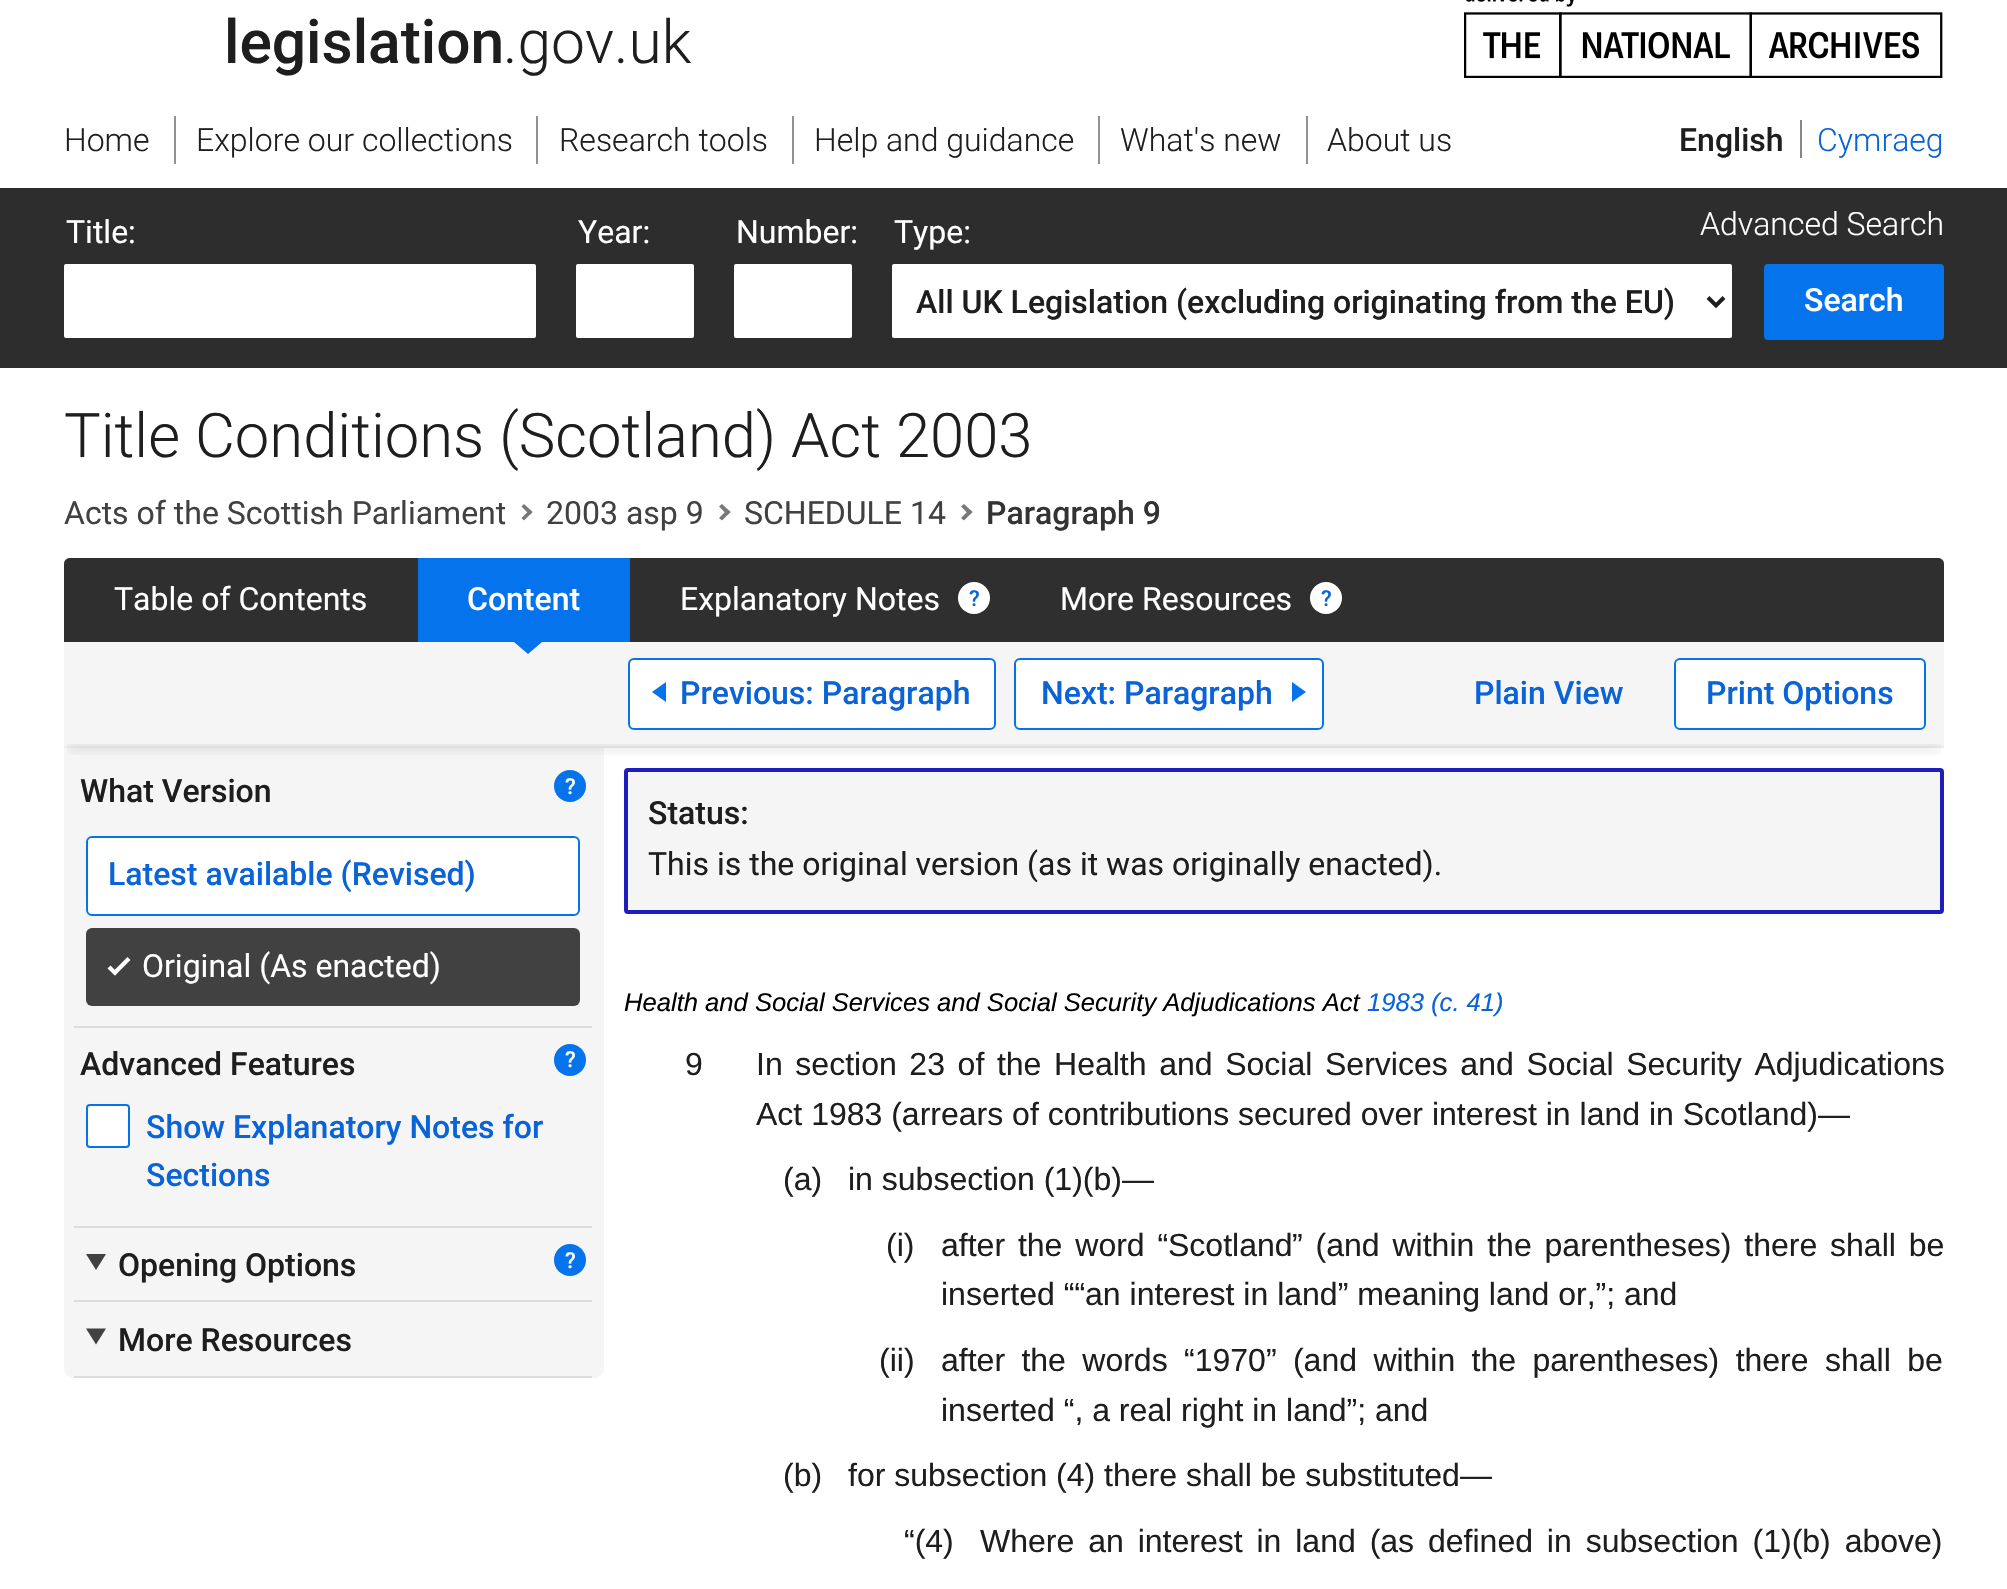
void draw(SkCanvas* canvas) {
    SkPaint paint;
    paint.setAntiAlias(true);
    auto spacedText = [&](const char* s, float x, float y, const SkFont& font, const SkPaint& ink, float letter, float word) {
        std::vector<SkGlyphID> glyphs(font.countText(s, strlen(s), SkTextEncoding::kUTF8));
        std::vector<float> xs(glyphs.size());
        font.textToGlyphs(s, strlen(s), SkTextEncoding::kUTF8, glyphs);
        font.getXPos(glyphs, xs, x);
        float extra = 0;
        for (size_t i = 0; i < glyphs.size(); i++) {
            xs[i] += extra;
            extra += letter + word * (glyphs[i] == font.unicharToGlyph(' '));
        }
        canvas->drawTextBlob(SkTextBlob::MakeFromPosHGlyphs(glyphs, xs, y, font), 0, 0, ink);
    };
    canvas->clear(0xFFFFFFFF);
    SkFont font1(fontMgr->matchFamilyStyle("Roboto", SkFontStyle(500, SkFontStyle::kNormal_Width, SkFontStyle::kUpright_Slant)), 60.5f);
    font1.setSubpixel(true);
    paint.setColor(0xFF1E1E1E);
    canvas->drawString("legislation", 224, 63, font1, paint);
    SkFont font2(fontMgr->matchFamilyStyle("Roboto", SkFontStyle(300, SkFontStyle::kNormal_Width, SkFontStyle::kUpright_Slant)), 60.5f);
    font2.setSubpixel(true);
    canvas->drawString(".gov.uk", 503, 63, font2, paint);
    canvas->drawImageRect(SkImages::DeferredFromEncodedData(SkData::MakeFromFileName("img1.png")), SkRect::MakeXYWH(1464, 0, 479, 78), SkSamplingOptions());
    SkFont font3(fontMgr->matchFamilyStyle("Roboto", SkFontStyle(500, SkFontStyle::kNormal_Width, SkFontStyle::kUpright_Slant)), 32);
    font3.setSubpixel(true);
    canvas->drawString("English", 1679, 151, font3, paint);
    SkFont font4(fontMgr->matchFamilyStyle("Roboto", SkFontStyle(300, SkFontStyle::kNormal_Width, SkFontStyle::kUpright_Slant)), 32);
    font4.setSubpixel(true);
    paint.setColor(0xFF0A64D7);
    canvas->drawString("Cymraeg", 1817, 151, font4, paint);
    paint.setColor(0xFF878787);
    canvas->drawRect(SkRect::MakeXYWH(1800, 120, 2, 38), paint);
    paint.setColor(0xFF2D2D2D);
    canvas->drawRect(SkRect::MakeXYWH(0, 188, 2007, 180), paint);
    paint.setColor(0xFF1E1E1E);
    canvas->drawString("Home", 64, 151, font4, paint);
    paint.setColor(0xFF919191);
    canvas->drawRect(SkRect::MakeXYWH(174, 116, 2, 48), paint);
    paint.setColor(0xFF1E1E1E);
    canvas->drawString("Explore our collections", 196, 151, font4, paint);
    paint.setColor(0xFF919191);
    canvas->drawRect(SkRect::MakeXYWH(536, 116, 2, 48), paint);
    paint.setColor(0xFF1E1E1E);
    canvas->drawString("Research tools", 559, 151, font4, paint);
    paint.setColor(0xFF919191);
    canvas->drawRect(SkRect::MakeXYWH(792, 116, 2, 48), paint);
    paint.setColor(0xFF1E1E1E);
    canvas->drawString("Help and guidance", 814, 151, font4, paint);
    paint.setColor(0xFF919191);
    canvas->drawRect(SkRect::MakeXYWH(1098, 116, 2, 48), paint);
    paint.setColor(0xFF1E1E1E);
    canvas->drawString("What's new", 1120, 151, font4, paint);
    paint.setColor(0xFF919191);
    canvas->drawRect(SkRect::MakeXYWH(1306, 116, 2, 48), paint);
    paint.setColor(0xFF1E1E1E);
    canvas->drawString("About us", 1327, 151, font4, paint);
    SkFont font5(fontMgr->matchFamilyStyle("Roboto", SkFontStyle::Normal()), 32);
    font5.setSubpixel(true);
    paint.setColor(0xFFFFFFFF);
    canvas->drawString("Title:", 66, 243, font5, paint);
    canvas->drawRoundRect(SkRect::MakeXYWH(64, 264, 472, 74), 2, 2, paint);
    canvas->drawString("Year:", 578, 243, font5, paint);
    canvas->drawRoundRect(SkRect::MakeXYWH(576, 264, 118, 74), 2, 2, paint);
    canvas->drawString("Number:", 736, 243, font5, paint);
    canvas->drawRoundRect(SkRect::MakeXYWH(734, 264, 118, 74), 2, 2, paint);
    canvas->drawString("Type:", 894, 243, font5, paint);
    canvas->drawRoundRect(SkRect::MakeXYWH(892, 264, 840, 74), 2, 2, paint);
    paint.setStyle(SkPaint::kStroke_Style);
    paint.setStrokeWidth(4);
    paint.setColor(0xFF1E1E1E);
    canvas->drawPath(SkPathBuilder().moveTo(1708, 297.5f).lineTo(1716, 305.5f).lineTo(1724, 297.5f).detach(), paint);
    paint.setStyle(SkPaint::kFill_Style);
    canvas->drawString("All UK Legislation (excluding originating from the EU)", 916, 313, font3, paint);
    paint.setColor(0xFFFFFFFF);
    canvas->drawString("Advanced Search", 1700, 235, font4, paint);
    paint.setColor(0xFF0573EB);
    canvas->drawRoundRect(SkRect::MakeXYWH(1764, 264, 180, 76), 4, 4, paint);
    paint.setColor(0xFFFFFFFF);
    canvas->drawString("Search", 1804, 311, font3, paint);
    SkFont font6(fontMgr->matchFamilyStyle("Roboto", SkFontStyle(300, SkFontStyle::kNormal_Width, SkFontStyle::kUpright_Slant)), 61.5f);
    font6.setSubpixel(true);
    paint.setColor(0xFF1E1E1E);
    canvas->drawString("Title Conditions (Scotland) Act 2003", 64, 457, font6, paint);
    paint.setColor(0xFF414141);
    canvas->drawString("Acts of the Scottish Parliament", 64, 524, font5, paint);
    paint.setColor(0xFF787878);
    canvas->drawPath(SkPathBuilder().moveTo(524, 504).lineTo(532.5f, 512).lineTo(530, 515).lineTo(521.5f, 506.5f).close().detach(), paint);
    canvas->drawPath(SkPathBuilder().moveTo(530, 509.5f).lineTo(532.5f, 512).lineTo(524, 520.5f).lineTo(521.5f, 518).close().detach(), paint);
    paint.setColor(0xFF414141);
    canvas->drawString("2003 asp 9", 546, 524, font5, paint);
    paint.setColor(0xFF787878);
    canvas->drawPath(SkPathBuilder().moveTo(722, 504).lineTo(730.5f, 512).lineTo(727.5f, 515).lineTo(719, 506.5f).close().detach(), paint);
    canvas->drawPath(SkPathBuilder().moveTo(727.5f, 509.5f).lineTo(730.5f, 512).lineTo(722, 520.5f).lineTo(719, 518).close().detach(), paint);
    paint.setColor(0xFF414141);
    canvas->drawString("SCHEDULE 14", 744, 524, font5, paint);
    paint.setColor(0xFF787878);
    canvas->drawPath(SkPathBuilder().moveTo(964, 504).lineTo(972.5f, 512).lineTo(969.5f, 515).lineTo(961, 506.5f).close().detach(), paint);
    canvas->drawPath(SkPathBuilder().moveTo(969.5f, 509.5f).lineTo(972.5f, 512).lineTo(964, 520.5f).lineTo(961, 518).close().detach(), paint);
    paint.setColor(0xFF333333);
    canvas->drawString("Paragraph 9", 986, 524, font3, paint);
    paint.setColor(0xFF2E2F2E);
    canvas->drawPath(SkPathBuilder().moveTo(70, 558).lineTo(1938, 558).cubicTo(1941.5f, 558, 1944, 560.5f, 1944, 564).lineTo(1944, 642).lineTo(64, 642).lineTo(64, 564).cubicTo(64, 560.5f, 66.5f, 558, 70, 558).close().detach(), paint);
    paint.setColor(0xFFFFFFFF);
    canvas->drawString("Table of Contents", 114, 610, font5, paint);
    paint.setColor(0xFF0573EB);
    canvas->drawRect(SkRect::MakeXYWH(418, 558, 212, 84), paint);
    paint.setColor(0xFFFFFFFF);
    canvas->drawString("Content", 467, 610, font3, paint);
    paint.setColor(0xFFF5F5F5);
    canvas->drawRect(SkRect::MakeXYWH(64, 642, 1880, 104), paint);
    paint.setColor(0xFF0573EB);
    canvas->drawPath(SkPathBuilder().moveTo(514, 642).lineTo(542, 642).lineTo(528, 654).close().detach(), paint);
    paint.setColor(0xFFFFFFFF);
    canvas->drawString("Explanatory Notes", 680, 610, font5, paint);
    canvas->drawCircle(974, 598, 16, paint);
    SkFont font7(fontMgr->matchFamilyStyle("Roboto", SkFontStyle(500, SkFontStyle::kNormal_Width, SkFontStyle::kUpright_Slant)), 22);
    font7.setSubpixel(true);
    paint.setColor(0xFF0A64D7);
    canvas->drawString("?", 969, 606, font7, paint);
    paint.setColor(0xFFFFFFFF);
    canvas->drawString("More Resources", 1060, 610, font5, paint);
    canvas->drawCircle(1326, 598, 16, paint);
    paint.setColor(0xFF0A64D7);
    canvas->drawString("?", 1321, 606, font7, paint);
    paint.setColor(0xFFEBEBEB);
    canvas->drawRect(SkRect::MakeXYWH(64, 746, 1880, 2), paint);
    paint.setColor(0xFFFFFFFF);
    canvas->drawRoundRect(SkRect::MakeXYWH(629, 659, 366, 70), 5, 5, paint);
    paint.setStyle(SkPaint::kStroke_Style);
    paint.setStrokeWidth(2);
    paint.setColor(0xFF0573EB);
    canvas->drawRoundRect(SkRect::MakeXYWH(629, 659, 366, 70), 5, 5, paint);
    paint.setStyle(SkPaint::kFill_Style);
    canvas->drawPath(SkPathBuilder().moveTo(666, 682).lineTo(666, 702).lineTo(652, 692).close().detach(), paint);
    paint.setColor(0xFF0A64D7);
    canvas->drawString("Previous: Paragraph", 680, 704, font3, paint);
    paint.setColor(0xFFFFFFFF);
    canvas->drawRoundRect(SkRect::MakeXYWH(1015, 659, 308, 70), 5, 5, paint);
    paint.setStyle(SkPaint::kStroke_Style);
    paint.setColor(0xFF0573EB);
    canvas->drawRoundRect(SkRect::MakeXYWH(1015, 659, 308, 70), 5, 5, paint);
    paint.setStyle(SkPaint::kFill_Style);
    paint.setColor(0xFF0A64D7);
    canvas->drawString("Next: Paragraph", 1041, 704, font3, paint);
    paint.setColor(0xFF0573EB);
    canvas->drawPath(SkPathBuilder().moveTo(1292, 702).lineTo(1292, 682).lineTo(1306, 692).close().detach(), paint);
    paint.setColor(0xFF0A64D7);
    canvas->drawString("Plain View", 1474, 704, font3, paint);
    paint.setColor(0xFFFFFFFF);
    canvas->drawRoundRect(SkRect::MakeXYWH(1675, 659, 250, 70), 5, 5, paint);
    paint.setStyle(SkPaint::kStroke_Style);
    paint.setColor(0xFF0573EB);
    canvas->drawRoundRect(SkRect::MakeXYWH(1675, 659, 250, 70), 5, 5, paint);
    paint.setStyle(SkPaint::kFill_Style);
    paint.setColor(0xFF0A64D7);
    canvas->drawString("Print Options", 1706, 704, font3, paint);
    paint.setColor(0xFFF5F5F5);
    canvas->drawPath(SkPathBuilder().moveTo(64, 748).lineTo(604, 748).lineTo(604, 1368).cubicTo(604, 1373.5f, 599.5f, 1378, 594, 1378).lineTo(74, 1378).cubicTo(68.5f, 1378, 64, 1373.5f, 64, 1368).close().detach(), paint);
    paint.setColor(0xFFDCDCDC);
    canvas->drawRect(SkRect::MakeXYWH(74, 1026, 518, 2), paint);
    paint.setColor(0xFF1E1E1E);
    canvas->drawString("What Version", 80, 802, font3, paint);
    paint.setColor(0xFF0573EB);
    canvas->drawCircle(570, 786, 16, paint);
    paint.setColor(0xFFFFFFFF);
    canvas->drawString("?", 565, 794, font7, paint);
    canvas->drawRoundRect(SkRect::MakeXYWH(87, 837, 492, 78), 5, 5, paint);
    paint.setStyle(SkPaint::kStroke_Style);
    paint.setColor(0xFF0573EB);
    canvas->drawRoundRect(SkRect::MakeXYWH(87, 837, 492, 78), 5, 5, paint);
    paint.setStyle(SkPaint::kFill_Style);
    paint.setColor(0xFF0A64D7);
    canvas->drawString("Latest available (Revised)", 108, 885, font3, paint);
    paint.setColor(0xFF414141);
    canvas->drawRoundRect(SkRect::MakeXYWH(86, 928, 494, 78), 6, 6, paint);
    paint.setColor(0xFFFFFFFF);
    canvas->drawPath(SkPathBuilder().moveTo(127.5f, 957).lineTo(130.5f, 960).lineTo(115, 975.5f).lineTo(112, 972.5f).close().detach(), paint);
    canvas->drawPath(SkPathBuilder().moveTo(110.5f, 965.5f).lineTo(117.5f, 972.5f).lineTo(115, 975.5f).lineTo(107.5f, 968.5f).close().detach(), paint);
    canvas->drawString("Original (As enacted)", 142, 977, font5, paint);
    paint.setColor(0xFFDCDCDC);
    canvas->drawRect(SkRect::MakeXYWH(74, 1226, 518, 2), paint);
    paint.setColor(0xFF1E1E1E);
    canvas->drawString("Advanced Features", 80, 1075, font3, paint);
    paint.setColor(0xFF0573EB);
    canvas->drawCircle(570, 1060, 16, paint);
    paint.setColor(0xFFFFFFFF);
    canvas->drawString("?", 565, 1067, font7, paint);
    canvas->drawRoundRect(SkRect::MakeXYWH(87, 1105, 42, 42), 3, 3, paint);
    paint.setStyle(SkPaint::kStroke_Style);
    paint.setColor(0xFF0573EB);
    canvas->drawRoundRect(SkRect::MakeXYWH(87, 1105, 42, 42), 3, 3, paint);
    paint.setStyle(SkPaint::kFill_Style);
    paint.setColor(0xFF0A64D7);
    canvas->drawString("Show Explanatory Notes for", 146, 1138, font3, paint);
    canvas->drawString("Sections", 146, 1186, font3, paint);
    paint.setColor(0xFFDCDCDC);
    canvas->drawRect(SkRect::MakeXYWH(74, 1300, 518, 2), paint);
    paint.setColor(0xFF414141);
    canvas->drawPath(SkPathBuilder().moveTo(86, 1254).lineTo(106, 1254).lineTo(96, 1270).close().detach(), paint);
    paint.setColor(0xFF1E1E1E);
    canvas->drawString("Opening Options", 118, 1276, font3, paint);
    paint.setColor(0xFF0573EB);
    canvas->drawCircle(570, 1260, 16, paint);
    paint.setColor(0xFFFFFFFF);
    canvas->drawString("?", 565, 1268, font7, paint);
    paint.setColor(0xFFDCDCDC);
    canvas->drawRect(SkRect::MakeXYWH(74, 1376, 518, 2), paint);
    paint.setColor(0xFF414141);
    canvas->drawPath(SkPathBuilder().moveTo(86, 1328.5f).lineTo(106, 1328.5f).lineTo(96, 1344.5f).close().detach(), paint);
    paint.setColor(0xFF1E1E1E);
    canvas->drawString("More Resources", 118, 1351, font3, paint);
    paint.setColor(0xFFF5F5F5);
    canvas->drawRoundRect(SkRect::MakeXYWH(626, 770, 1316, 142), 2, 2, paint);
    paint.setStyle(SkPaint::kStroke_Style);
    paint.setStrokeWidth(4);
    paint.setColor(0xFF1E1EBE);
    canvas->drawRoundRect(SkRect::MakeXYWH(626, 770, 1316, 142), 2, 2, paint);
    canvas->save();
    canvas->clipRect(SkRect::MakeXYWH(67, 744, 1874, 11));
    paint.setStyle(SkPaint::kFill_Style);
    paint.setColor(0x12010101);
    paint.setMaskFilter(SkMaskFilter::MakeBlur(kNormal_SkBlurStyle, 6));
    canvas->drawRect(SkRect::MakeXYWH(68, 740, 1872, 12), paint);
    paint.setMaskFilter(nullptr);
    canvas->restore();
    paint.setColor(0xFF1E1E1E);
    canvas->drawString("Status:", 648, 824, font3, paint);
    canvas->drawString("This is the original version (as it was originally enacted).", 648, 875, font5, paint);
    SkFont font8(fontMgr->matchFamilyStyle("Liberation Sans", SkFontStyle::Italic()), 25.6f);
    font8.setSubpixel(true);
    paint.setColor(0xFF000000);
    canvas->drawString("Health and Social Services and Social Security Adjudications Act", 624, 1011, font8, paint);
    paint.setColor(0xFF0A64D7);
    canvas->drawString("1983 (c. 41)", 1367, 1011, font8, paint);
    SkFont font9(fontMgr->matchFamilyStyle("Liberation Sans", SkFontStyle::Normal()), 32);
    font9.setSubpixel(true);
    paint.setColor(0xFF1E1E1E);
    canvas->drawString("9", 685, 1075, font9, paint);
    spacedText("In section 23 of the Health and Social Services and Social Security Adjudications", 756, 1075, font9, paint, 0, 3.75f);
    canvas->drawString("Act 1983 (arrears of contributions secured over interest in land in Scotland)—", 756, 1125, font9, paint);
    canvas->drawString("(a)", 783, 1190, font9, paint);
    canvas->drawString("in subsection (1)(b)—", 848, 1190, font9, paint);
    canvas->drawString("(i)", 886, 1256, font9, paint);
    spacedText("after the word “", 941, 1256, font9, paint, 0, 4);
    canvas->drawString("Scotland", 1168, 1256, font9, paint);
    spacedText("” (and within the parentheses) there shall be", 1292, 1256, font9, paint, 0, 4);
    canvas->drawString("inserted ““an interest in land” meaning land or,”; and", 941, 1305, font9, paint);
    canvas->drawString("(ii)", 879, 1371, font9, paint);
    spacedText("after the words “1970” (and within the parentheses) there shall be", 941, 1371, font9, paint, 0, 7.5f);
    canvas->drawString("inserted “, a real right in land”; and", 941, 1421, font9, paint);
    canvas->drawString("(b)", 783, 1486, font9, paint);
    canvas->drawString("for subsection (4) there shall be substituted—", 848, 1486, font9, paint);
    canvas->drawString("“(4)", 904, 1552, font9, paint);
    spacedText("Where an interest in land (as defined in subsection (1)(b) above)", 980, 1552, font9, paint, 0, 5);
}
